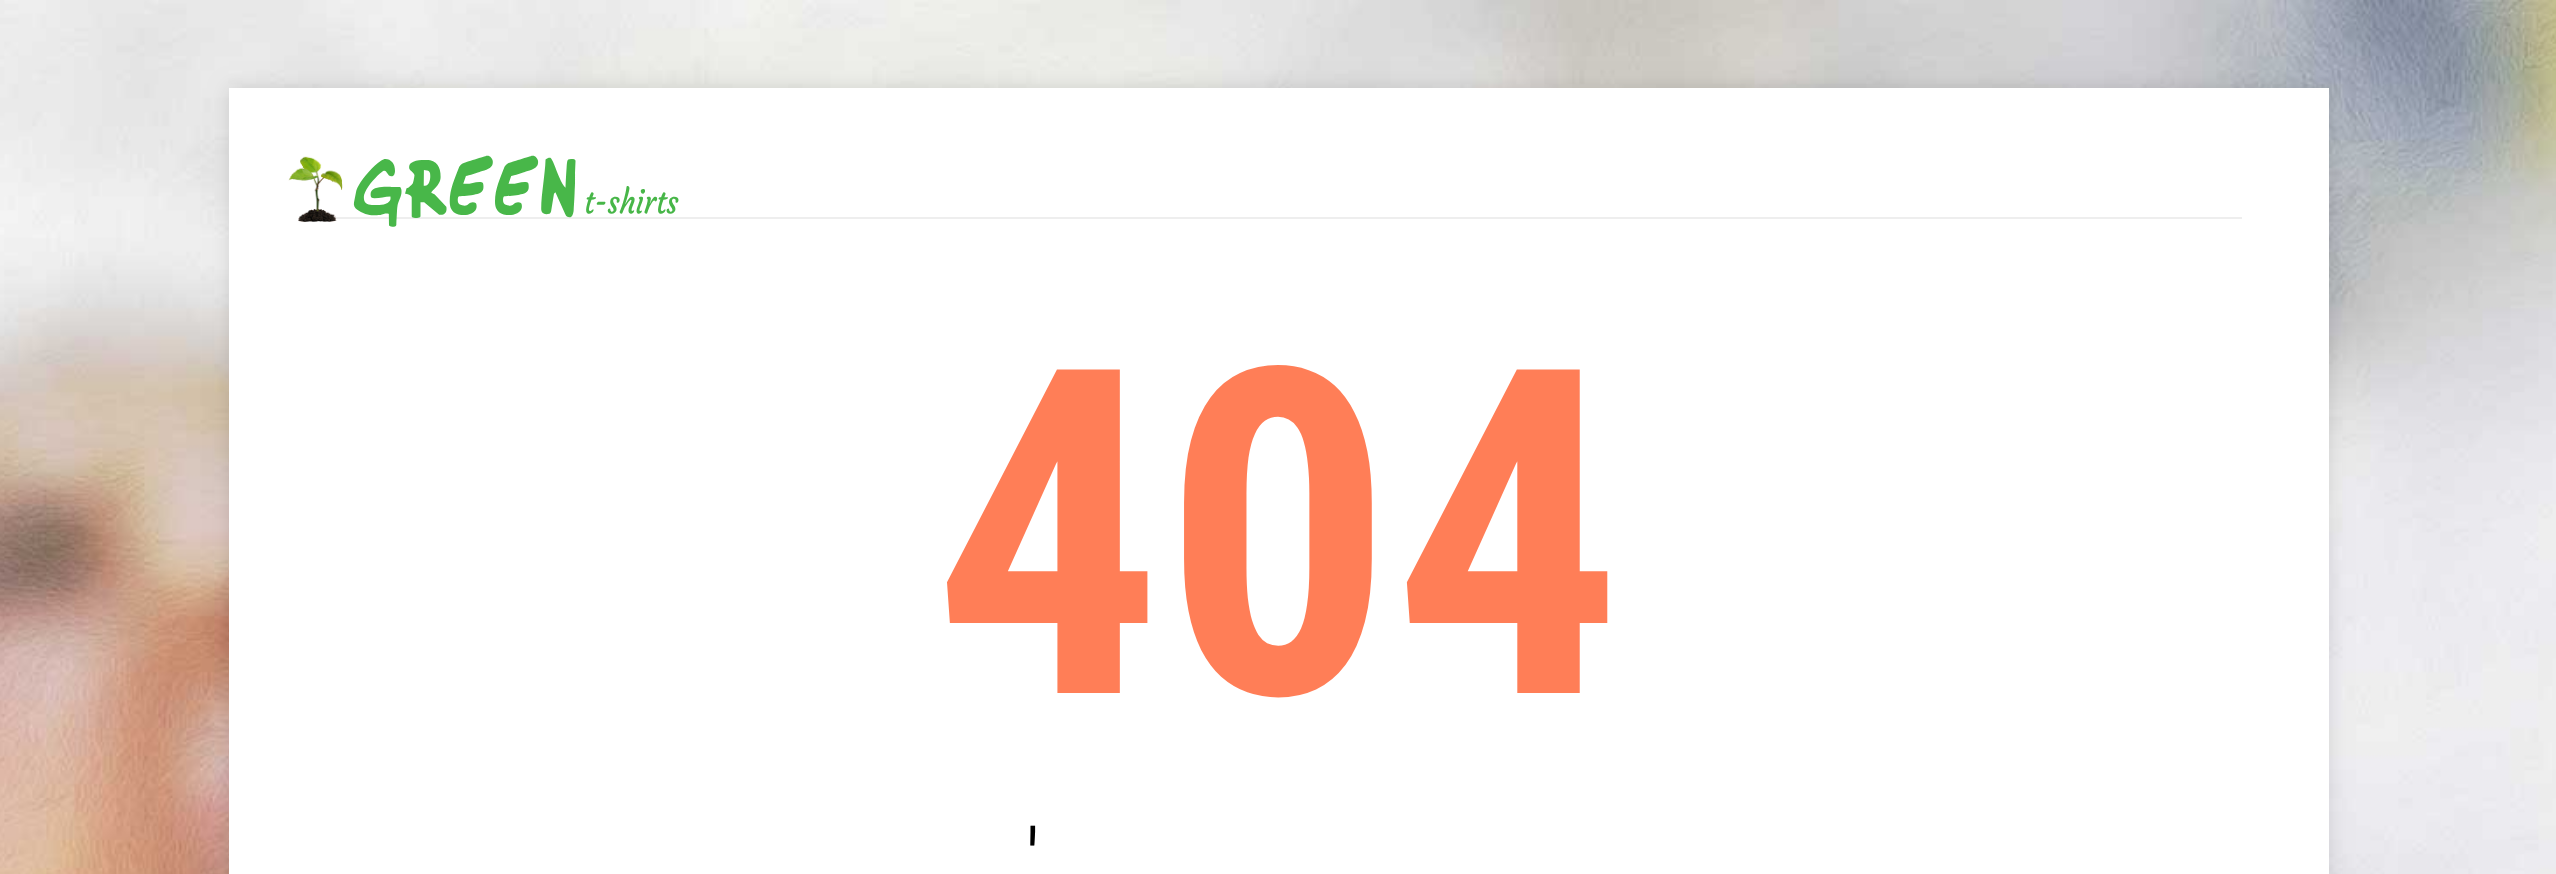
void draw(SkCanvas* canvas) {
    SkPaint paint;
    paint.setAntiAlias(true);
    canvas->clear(0xFFFFFFFF);
    canvas->drawImageRect(SkImages::DeferredFromEncodedData(SkData::MakeFromFileName("img1.png")), SkRect::MakeXYWH(0, 0, 2556, 874), SkSamplingOptions());
    paint.setColor(0x1F000000);
    paint.setMaskFilter(SkMaskFilter::MakeBlur(kNormal_SkBlurStyle, 9));
    canvas->drawRect(SkRect::MakeXYWH(229, 88, 2100, 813), paint);
    paint.setMaskFilter(nullptr);
    paint.setColor(0xFFFFFFFF);
    canvas->drawRect(SkRect::MakeXYWH(229, 88, 2100, 786), paint);
    paint.setColor(0xFFEEEEEE);
    canvas->drawRect(SkRect::MakeXYWH(333, 217, 1909, 2), paint);
    canvas->drawImageRect(SkImages::DeferredFromEncodedData(SkData::MakeFromFileName("img2.png")), SkRect::MakeXYWH(288, 155, 391, 72), SkSamplingOptions());
    SkFont font1(fontMgr->matchFamilyStyle("Roboto Condensed", SkFontStyle::Bold()), 455);
    font1.setSubpixel(true);
    paint.setColor(0xFFFF7E57);
    canvas->drawString("404", 933, 693, font1, paint);
    SkFont font2(fontMgr->matchFamilyStyle("Roboto Condensed", SkFontStyle(300, SkFontStyle::kNormal_Width, SkFontStyle::kUpright_Slant)), 91);
    font2.setSubpixel(true);
    paint.setColor(0xFF000000);
    canvas->drawString("'", 1025, 894, font2, paint);
}
